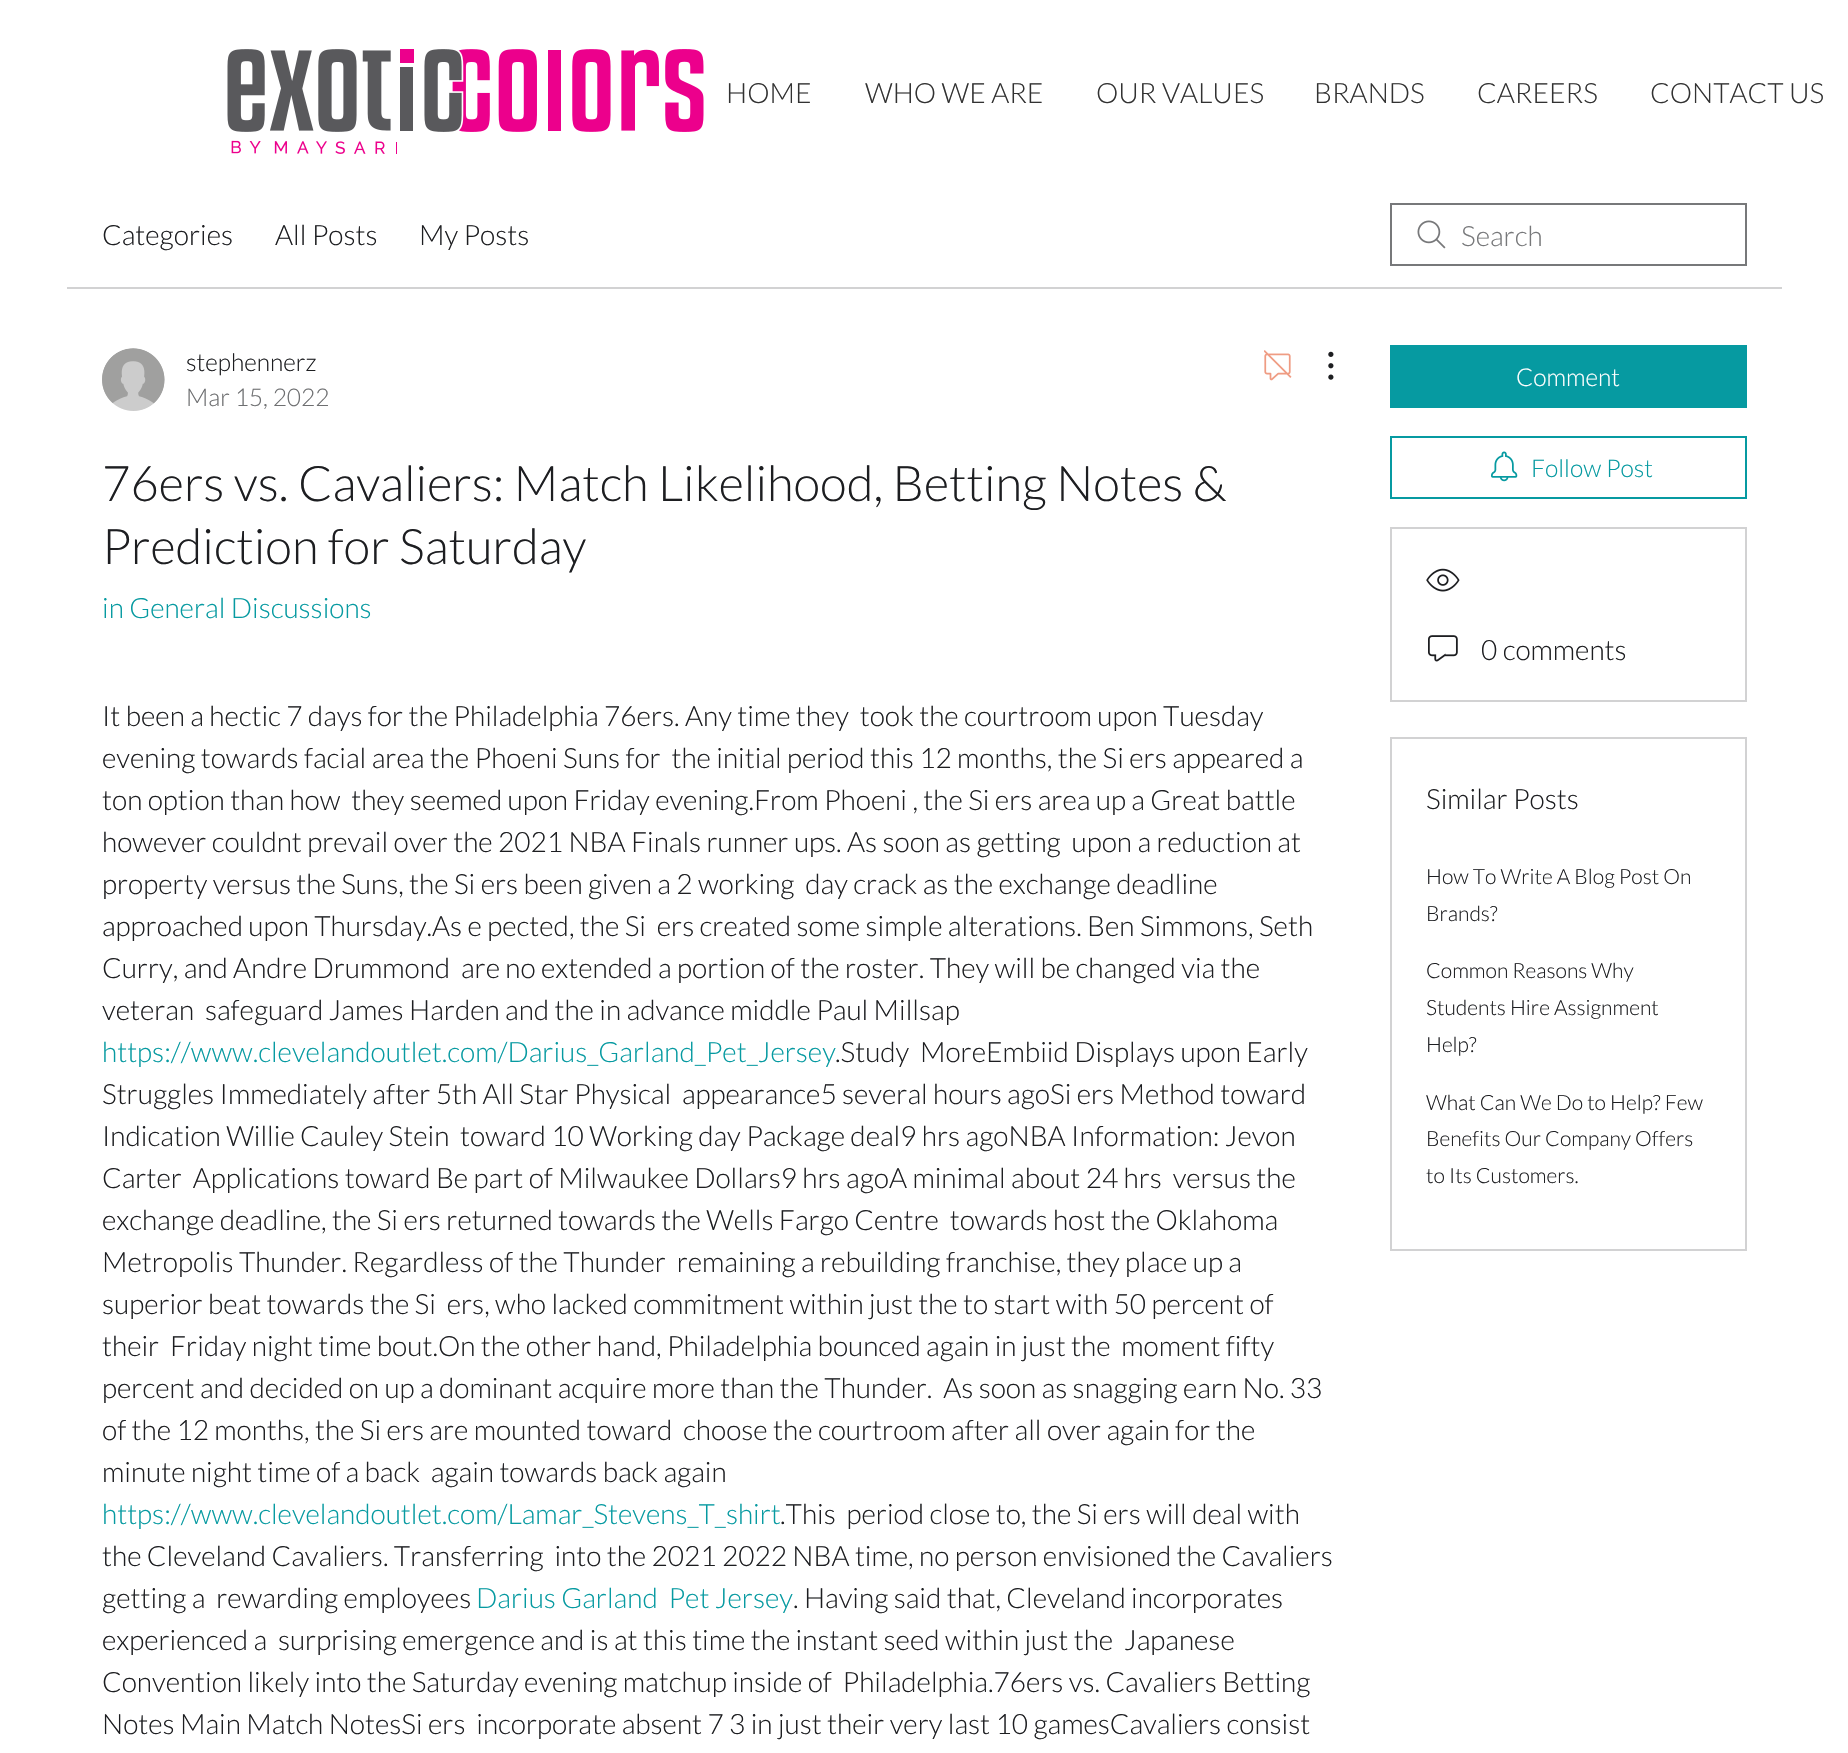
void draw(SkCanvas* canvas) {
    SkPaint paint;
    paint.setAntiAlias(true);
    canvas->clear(0xFFFFFFFF);
    canvas->drawImageRect(SkImages::DeferredFromEncodedData(SkData::MakeFromFileName("img1.png")), SkRect::MakeXYWH(227, 49, 477, 105), SkSamplingOptions());
    SkFont font1(fontMgr->matchFamilyStyle("Lato", SkFontStyle(300, SkFontStyle::kNormal_Width, SkFontStyle::kUpright_Slant)), 28);
    font1.setSubpixel(true);
    paint.setColor(0xFF323232);
    canvas->drawString("HOME", 726, 103, font1, paint);
    canvas->drawString("WHO WE ARE", 865, 103, font1, paint);
    canvas->drawString("OUR VALUES", 1096, 103, font1, paint);
    canvas->drawString("BRANDS", 1314, 103, font1, paint);
    canvas->drawString("CAREERS", 1477, 103, font1, paint);
    canvas->drawString("CONTACT US", 1650, 103, font1, paint);
    paint.setColor(0xFFD2D2D3);
    canvas->drawRect(SkRect::MakeXYWH(67, 287, 1715, 2), paint);
    paint.setColor(0xFF1D1E21);
    canvas->drawString("Categories", 102, 245, font1, paint);
    canvas->drawString("All Posts", 275, 245, font1, paint);
    canvas->drawString("My Posts", 419, 245, font1, paint);
    canvas->drawImageRect(SkImages::DeferredFromEncodedData(SkData::MakeFromFileName("img2.png")), SkRect::MakeXYWH(1417, 220, 29, 29), SkSamplingOptions());
    paint.setStyle(SkPaint::kStroke_Style);
    paint.setStrokeWidth(2);
    paint.setColor(0xFF77787A);
    canvas->drawRect(SkRect::MakeXYWH(1391, 204, 355, 61), paint);
    paint.setStyle(SkPaint::kFill_Style);
    canvas->drawString("Search", 1461, 246, font1, paint);
    canvas->drawImageRect(SkImages::DeferredFromEncodedData(SkData::MakeFromFileName("img3.png")), SkRect::MakeXYWH(102, 348, 63, 63), SkSamplingOptions());
    SkFont font2(fontMgr->matchFamilyStyle("Lato", SkFontStyle(300, SkFontStyle::kNormal_Width, SkFontStyle::kUpright_Slant)), 24.5f);
    font2.setSubpixel(true);
    paint.setColor(0xFF1D1E21);
    canvas->drawString("stephennerz", 186, 371, font2, paint);
    paint.setColor(0xFF6E6F71);
    canvas->drawString("Mar 15, 2022", 186, 406, font2, paint);
    canvas->drawImageRect(SkImages::DeferredFromEncodedData(SkData::MakeFromFileName("img4.png")), SkRect::MakeXYWH(1264, 350, 28, 31), SkSamplingOptions());
    canvas->drawImageRect(SkImages::DeferredFromEncodedData(SkData::MakeFromFileName("img5.png")), SkRect::MakeXYWH(1328, 351, 6, 29), SkSamplingOptions());
    SkFont font3(fontMgr->matchFamilyStyle("Lato", SkFontStyle(300, SkFontStyle::kNormal_Width, SkFontStyle::kUpright_Slant)), 49);
    font3.setSubpixel(true);
    paint.setColor(0xFF1D1E21);
    canvas->drawString("76ers vs. Cavaliers: Match Likelihood, Betting Notes &", 102, 501, font3, paint);
    canvas->drawString("Prediction for Saturday", 102, 564, font3, paint);
    paint.setColor(0xFF069AA1);
    canvas->drawString("in General Discussions", 102, 618, font1, paint);
    paint.setColor(0xFF1D1E21);
    canvas->drawString("It been a hectic 7 days for the Philadelphia 76ers. Any time they  took the courtroom upon Tuesday", 102, 726, font1, paint);
    canvas->drawString("evening towards facial area the Phoeni Suns for  the initial period this 12 months, the Si ers appeared a", 102, 768, font1, paint);
    canvas->drawString("ton option than how  they seemed upon Friday evening.From Phoeni , the Si ers area up a Great battle", 102, 810, font1, paint);
    canvas->drawString("however couldnt prevail over the 2021 NBA Finals runner ups. As soon as getting  upon a reduction at", 102, 852, font1, paint);
    canvas->drawString("property versus the Suns, the Si ers been given a 2 working  day crack as the exchange deadline", 102, 894, font1, paint);
    canvas->drawString("approached upon Thursday.As e pected, the Si  ers created some simple alterations. Ben Simmons, Seth", 102, 936, font1, paint);
    canvas->drawString("Curry, and Andre Drummond  are no extended a portion of the roster. They will be changed via the", 102, 978, font1, paint);
    canvas->drawString("veteran  safeguard James Harden and the in advance middle Paul Millsap", 102, 1020, font1, paint);
    paint.setColor(0xFF069AA1);
    canvas->drawString("https://www.clevelandoutlet.com/Darius_Garland_Pet_Jersey", 102, 1062, font1, paint);
    paint.setColor(0xFF1D1E21);
    canvas->drawString(".Study  MoreEmbiid Displays upon Early", 835, 1062, font1, paint);
    canvas->drawString("Struggles Immediately after 5th All Star Physical  appearance5 several hours agoSi ers Method toward", 102, 1104, font1, paint);
    canvas->drawString("Indication Willie Cauley Stein  toward 10 Working day Package deal9 hrs agoNBA Information: Jevon", 102, 1146, font1, paint);
    canvas->drawString("Carter  Applications toward Be part of Milwaukee Dollars9 hrs agoA minimal about 24 hrs  versus the", 102, 1188, font1, paint);
    canvas->drawString("exchange deadline, the Si ers returned towards the Wells Fargo Centre  towards host the Oklahoma", 102, 1230, font1, paint);
    canvas->drawString("Metropolis Thunder. Regardless of the Thunder  remaining a rebuilding franchise, they place up a", 102, 1272, font1, paint);
    canvas->drawString("superior beat towards the Si  ers, who lacked commitment within just the to start with 50 percent of", 102, 1314, font1, paint);
    canvas->drawString("their  Friday night time bout.On the other hand, Philadelphia bounced again in just the  moment fifty", 102, 1356, font1, paint);
    canvas->drawString("percent and decided on up a dominant acquire more than the Thunder.  As soon as snagging earn No. 33", 102, 1398, font1, paint);
    canvas->drawString("of the 12 months, the Si ers are mounted toward  choose the courtroom after all over again for the", 102, 1440, font1, paint);
    canvas->drawString("minute night time of a back  again towards back again", 102, 1482, font1, paint);
    paint.setColor(0xFF069AA1);
    canvas->drawString("https://www.clevelandoutlet.com/Lamar_Stevens_T_shirt", 102, 1524, font1, paint);
    paint.setColor(0xFF1D1E21);
    canvas->drawString(".This  period close to, the Si ers will deal with", 780, 1524, font1, paint);
    canvas->drawString("the Cleveland Cavaliers. Transferring  into the 2021 2022 NBA time, no person envisioned the Cavaliers", 102, 1566, font1, paint);
    canvas->drawString("getting a  rewarding employees", 102, 1608, font1, paint);
    paint.setColor(0xFF069AA1);
    canvas->drawString("Darius Garland  Pet Jersey", 476, 1608, font1, paint);
    paint.setColor(0xFF1D1E21);
    canvas->drawString(". Having said that, Cleveland incorporates", 793, 1608, font1, paint);
    canvas->drawString("experienced a  surprising emergence and is at this time the instant seed within just the  Japanese", 102, 1650, font1, paint);
    canvas->drawString("Convention likely into the Saturday evening matchup inside of  Philadelphia.76ers vs. Cavaliers Betting", 102, 1692, font1, paint);
    canvas->drawString("Notes Main Match NotesSi ers  incorporate absent 7 3 in just their very last 10 gamesCavaliers consist", 102, 1734, font1, paint);
    paint.setColor(0xFF069AA1);
    canvas->drawRect(SkRect::MakeXYWH(1390, 345, 357, 63), paint);
    paint.setColor(0xFFFFFFFF);
    canvas->drawString("Comment", 1516, 386, font2, paint);
    paint.setStyle(SkPaint::kStroke_Style);
    paint.setColor(0xFF069AA1);
    canvas->drawRect(SkRect::MakeXYWH(1391, 437, 355, 61), paint);
    canvas->drawImageRect(SkImages::DeferredFromEncodedData(SkData::MakeFromFileName("img6.png")), SkRect::MakeXYWH(1491, 451, 27, 31), SkSamplingOptions());
    paint.setStyle(SkPaint::kFill_Style);
    canvas->drawString("Follow Post", 1531, 477, font2, paint);
    paint.setStyle(SkPaint::kStroke_Style);
    paint.setColor(0xFFD2D2D3);
    canvas->drawRect(SkRect::MakeXYWH(1391, 528, 355, 173), paint);
    canvas->drawImageRect(SkImages::DeferredFromEncodedData(SkData::MakeFromFileName("img7.png")), SkRect::MakeXYWH(1426, 568, 34, 24), SkSamplingOptions());
    canvas->drawImageRect(SkImages::DeferredFromEncodedData(SkData::MakeFromFileName("img8.png")), SkRect::MakeXYWH(1428, 635, 30, 27), SkSamplingOptions());
    paint.setStyle(SkPaint::kFill_Style);
    paint.setColor(0xFF1D1E21);
    canvas->drawString("0 comments", 1481, 660, font1, paint);
    paint.setStyle(SkPaint::kStroke_Style);
    paint.setColor(0xFFD2D2D3);
    canvas->drawRect(SkRect::MakeXYWH(1391, 738, 355, 512), paint);
    paint.setStyle(SkPaint::kFill_Style);
    paint.setColor(0xFF1D1E21);
    canvas->drawString("Similar Posts", 1426, 809, font1, paint);
    SkFont font4(fontMgr->matchFamilyStyle("Lato", SkFontStyle(300, SkFontStyle::kNormal_Width, SkFontStyle::kUpright_Slant)), 21);
    font4.setSubpixel(true);
    canvas->drawString("How To Write A Blog Post On", 1426, 884, font4, paint);
    canvas->drawString("Brands?", 1426, 921, font4, paint);
    canvas->drawString("Common Reasons Why", 1426, 978, font4, paint);
    canvas->drawString("Students Hire Assignment", 1426, 1015, font4, paint);
    canvas->drawString("Help?", 1426, 1052, font4, paint);
    canvas->drawString("What Can We Do to Help? Few", 1426, 1110, font4, paint);
    canvas->drawString("Benefits Our Company Offers", 1426, 1146, font4, paint);
    canvas->drawString("to Its Customers.", 1426, 1183, font4, paint);
}
